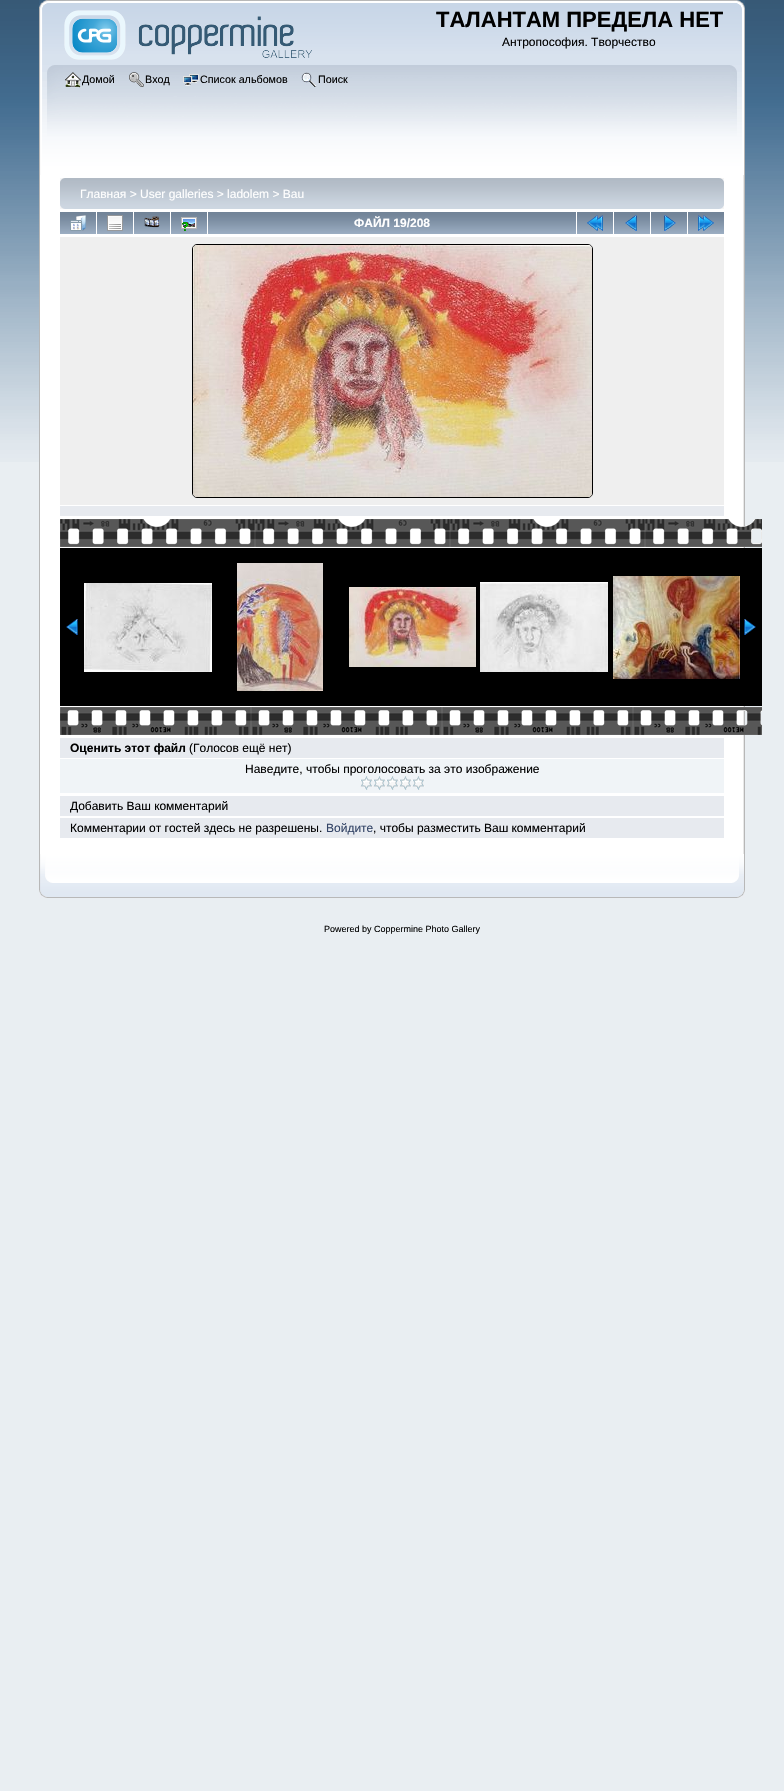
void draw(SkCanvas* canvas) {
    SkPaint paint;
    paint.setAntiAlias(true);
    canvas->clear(0xFFE9EEF2);
    canvas->drawImageRect(SkImages::DeferredFromEncodedData(SkData::MakeFromFileName("img1.png")), SkRect::MakeXYWH(0, 0, 784, 462), SkSamplingOptions());
    canvas->drawImageRect(SkImages::DeferredFromEncodedData(SkData::MakeFromFileName("img2.png")), SkRect::MakeXYWH(39, 0, 698, 65), SkSamplingOptions());
    canvas->drawImageRect(SkImages::DeferredFromEncodedData(SkData::MakeFromFileName("img3.png")), SkRect::MakeXYWH(737, 0, 8, 65), SkSamplingOptions());
    canvas->drawImageRect(SkImages::DeferredFromEncodedData(SkData::MakeFromFileName("img4.png")), SkRect::MakeXYWH(64, 10, 248, 50), SkSamplingOptions());
    SkFont font1(fontMgr->matchFamilyStyle("Liberation Sans", SkFontStyle::Bold()), 22);
    font1.setSubpixel(true);
    paint.setColor(0xFF000000);
    canvas->drawString("ТАЛАНТАМ ПРЕДЕЛА НЕТ", 436, 27, font1, paint);
    SkFont font2(fontMgr->matchFamilyStyle("Liberation Sans", SkFontStyle::Normal()), 12);
    font2.setSubpixel(true);
    canvas->drawString("Антропософия. Творчество", 502, 46, font2, paint);
    canvas->drawImageRect(SkImages::DeferredFromEncodedData(SkData::MakeFromFileName("img5.png")), SkRect::MakeXYWH(39, 65, 691, 110), SkSamplingOptions());
    canvas->drawImageRect(SkImages::DeferredFromEncodedData(SkData::MakeFromFileName("img6.png")), SkRect::MakeXYWH(730, 65, 15, 110), SkSamplingOptions());
    canvas->drawImageRect(SkImages::DeferredFromEncodedData(SkData::MakeFromFileName("img7.png")), SkRect::MakeXYWH(65, 72, 16, 16), SkSamplingOptions());
    SkFont font3(fontMgr->matchFamilyStyle("Liberation Sans", SkFontStyle::Normal()), 10.75f);
    font3.setSubpixel(true);
    canvas->drawString("Домой", 82, 83, font3, paint);
    canvas->drawImageRect(SkImages::DeferredFromEncodedData(SkData::MakeFromFileName("img8.png")), SkRect::MakeXYWH(129, 72, 15, 15), SkSamplingOptions());
    canvas->drawString("Вход", 145, 83, font3, paint);
    canvas->drawImageRect(SkImages::DeferredFromEncodedData(SkData::MakeFromFileName("img9.png")), SkRect::MakeXYWH(183, 74, 16, 12), SkSamplingOptions());
    canvas->drawString("Список альбомов", 200, 83, font3, paint);
    canvas->drawImageRect(SkImages::DeferredFromEncodedData(SkData::MakeFromFileName("img10.png")), SkRect::MakeXYWH(301, 72, 16, 15), SkSamplingOptions());
    canvas->drawString("Поиск", 318, 83, font3, paint);
    paint.setColor(0xFFFFFFFF);
    canvas->drawRect(SkRect::MakeXYWH(40, 175, 703, 679), paint);
    paint.setColor(0xFFB7B7B7);
    canvas->drawRect(SkRect::MakeXYWH(39, 175, 1, 679), paint);
    canvas->drawImageRect(SkImages::DeferredFromEncodedData(SkData::MakeFromFileName("img11.png")), SkRect::MakeXYWH(743, 175, 2, 679), SkSamplingOptions());
    canvas->drawImageRect(SkImages::DeferredFromEncodedData(SkData::MakeFromFileName("img12.png")), SkRect::MakeXYWH(60, 178, 659, 31), SkSamplingOptions());
    canvas->drawImageRect(SkImages::DeferredFromEncodedData(SkData::MakeFromFileName("img13.png")), SkRect::MakeXYWH(719, 178, 5, 31), SkSamplingOptions());
    paint.setColor(0xFFFFFFFF);
    canvas->drawString("Главная > User galleries > ladolem > Bau", 80, 198, font2, paint);
    canvas->drawImageRect(SkImages::DeferredFromEncodedData(SkData::MakeFromFileName("img14.png")), SkRect::MakeXYWH(60, 212, 36, 22), SkSamplingOptions());
    canvas->drawImageRect(SkImages::DeferredFromEncodedData(SkData::MakeFromFileName("img15.png")), SkRect::MakeXYWH(70, 215, 16, 16), SkSamplingOptions());
    canvas->drawImageRect(SkImages::DeferredFromEncodedData(SkData::MakeFromFileName("img14.png")), SkRect::MakeXYWH(97, 212, 36, 22), SkSamplingOptions());
    canvas->drawImageRect(SkImages::DeferredFromEncodedData(SkData::MakeFromFileName("img16.png")), SkRect::MakeXYWH(107, 215, 16, 16), SkSamplingOptions());
    canvas->drawImageRect(SkImages::DeferredFromEncodedData(SkData::MakeFromFileName("img14.png")), SkRect::MakeXYWH(134, 212, 36, 22), SkSamplingOptions());
    canvas->drawImageRect(SkImages::DeferredFromEncodedData(SkData::MakeFromFileName("img17.png")), SkRect::MakeXYWH(144, 216, 16, 12), SkSamplingOptions());
    canvas->drawImageRect(SkImages::DeferredFromEncodedData(SkData::MakeFromFileName("img14.png")), SkRect::MakeXYWH(171, 212, 36, 22), SkSamplingOptions());
    canvas->drawImageRect(SkImages::DeferredFromEncodedData(SkData::MakeFromFileName("img18.png")), SkRect::MakeXYWH(181, 217, 16, 14), SkSamplingOptions());
    canvas->drawImageRect(SkImages::DeferredFromEncodedData(SkData::MakeFromFileName("img19.png")), SkRect::MakeXYWH(208, 212, 368, 22), SkSamplingOptions());
    SkFont font4(fontMgr->matchFamilyStyle("Liberation Sans", SkFontStyle::Bold()), 12);
    font4.setSubpixel(true);
    canvas->drawString("ФАЙЛ 19/208", 354, 227, font4, paint);
    canvas->drawImageRect(SkImages::DeferredFromEncodedData(SkData::MakeFromFileName("img14.png")), SkRect::MakeXYWH(577, 212, 36, 22), SkSamplingOptions());
    canvas->drawImageRect(SkImages::DeferredFromEncodedData(SkData::MakeFromFileName("img20.png")), SkRect::MakeXYWH(587, 215, 16, 16), SkSamplingOptions());
    canvas->drawImageRect(SkImages::DeferredFromEncodedData(SkData::MakeFromFileName("img14.png")), SkRect::MakeXYWH(614, 212, 36, 22), SkSamplingOptions());
    canvas->drawImageRect(SkImages::DeferredFromEncodedData(SkData::MakeFromFileName("img21.png")), SkRect::MakeXYWH(625, 215, 12, 16), SkSamplingOptions());
    canvas->drawImageRect(SkImages::DeferredFromEncodedData(SkData::MakeFromFileName("img14.png")), SkRect::MakeXYWH(651, 212, 36, 22), SkSamplingOptions());
    canvas->drawImageRect(SkImages::DeferredFromEncodedData(SkData::MakeFromFileName("img22.png")), SkRect::MakeXYWH(664, 215, 12, 16), SkSamplingOptions());
    canvas->drawImageRect(SkImages::DeferredFromEncodedData(SkData::MakeFromFileName("img14.png")), SkRect::MakeXYWH(688, 212, 36, 22), SkSamplingOptions());
    canvas->drawImageRect(SkImages::DeferredFromEncodedData(SkData::MakeFromFileName("img23.png")), SkRect::MakeXYWH(698, 215, 16, 16), SkSamplingOptions());
    paint.setColor(0xFFEFEFEF);
    canvas->drawRect(SkRect::MakeXYWH(60, 237, 664, 268), paint);
    paint.setStyle(SkPaint::kStroke_Style);
    paint.setStrokeWidth(1);
    paint.setColor(0xFF000000);
    canvas->drawRoundRect(SkRect::MakeXYWH(192.5f, 244.5f, 400, 253), 4.5f, 4.5f, paint);
    canvas->drawImageRect(SkImages::DeferredFromEncodedData(SkData::MakeFromFileName("img24.png")), SkRect::MakeXYWH(193, 245, 399, 252), SkSamplingOptions());
    paint.setStyle(SkPaint::kFill_Style);
    paint.setColor(0xFFE7EAEF);
    canvas->drawRect(SkRect::MakeXYWH(60, 506, 664, 10), paint);
    canvas->drawImageRect(SkImages::DeferredFromEncodedData(SkData::MakeFromFileName("img25.png")), SkRect::MakeXYWH(60, 519, 702, 28), SkSamplingOptions());
    paint.setColor(0xFF000000);
    canvas->drawRect(SkRect::MakeXYWH(60, 548, 702, 158), paint);
    canvas->drawImageRect(SkImages::DeferredFromEncodedData(SkData::MakeFromFileName("img26.png")), SkRect::MakeXYWH(66, 619, 12, 16), SkSamplingOptions());
    canvas->drawImageRect(SkImages::DeferredFromEncodedData(SkData::MakeFromFileName("img27.png")), SkRect::MakeXYWH(84, 583, 128, 89), SkSamplingOptions());
    canvas->drawImageRect(SkImages::DeferredFromEncodedData(SkData::MakeFromFileName("img28.png")), SkRect::MakeXYWH(237, 563, 86, 128), SkSamplingOptions());
    canvas->drawImageRect(SkImages::DeferredFromEncodedData(SkData::MakeFromFileName("img29.png")), SkRect::MakeXYWH(349, 587, 127, 80), SkSamplingOptions());
    canvas->drawImageRect(SkImages::DeferredFromEncodedData(SkData::MakeFromFileName("img30.png")), SkRect::MakeXYWH(480, 582, 128, 90), SkSamplingOptions());
    canvas->drawImageRect(SkImages::DeferredFromEncodedData(SkData::MakeFromFileName("img31.png")), SkRect::MakeXYWH(613, 576, 127, 103), SkSamplingOptions());
    canvas->drawImageRect(SkImages::DeferredFromEncodedData(SkData::MakeFromFileName("img32.png")), SkRect::MakeXYWH(744, 619, 12, 16), SkSamplingOptions());
    canvas->drawImageRect(SkImages::DeferredFromEncodedData(SkData::MakeFromFileName("img33.png")), SkRect::MakeXYWH(60, 707, 702, 28), SkSamplingOptions());
    paint.setColor(0xFFE7EAEF);
    canvas->drawRect(SkRect::MakeXYWH(60, 738, 664, 20), paint);
    paint.setColor(0xFF000000);
    canvas->drawString("Оценить этот файл", 70, 752, font4, paint);
    canvas->drawString("(Голосов ещё нет)", 189, 752, font2, paint);
    paint.setColor(0xFFF0F4F7);
    canvas->drawRect(SkRect::MakeXYWH(60, 759, 664, 34), paint);
    paint.setColor(0xFF000000);
    canvas->drawString("Наведите, чтобы проголосовать за это изображение", 245, 773, font2, paint);
    canvas->drawImageRect(SkImages::DeferredFromEncodedData(SkData::MakeFromFileName("img34.png")), SkRect::MakeXYWH(360, 776, 13, 14), SkSamplingOptions());
    canvas->drawImageRect(SkImages::DeferredFromEncodedData(SkData::MakeFromFileName("img34.png")), SkRect::MakeXYWH(373, 776, 13, 14), SkSamplingOptions());
    canvas->drawImageRect(SkImages::DeferredFromEncodedData(SkData::MakeFromFileName("img34.png")), SkRect::MakeXYWH(386, 776, 13, 14), SkSamplingOptions());
    canvas->drawImageRect(SkImages::DeferredFromEncodedData(SkData::MakeFromFileName("img34.png")), SkRect::MakeXYWH(399, 776, 13, 14), SkSamplingOptions());
    canvas->drawImageRect(SkImages::DeferredFromEncodedData(SkData::MakeFromFileName("img34.png")), SkRect::MakeXYWH(412, 776, 13, 14), SkSamplingOptions());
    paint.setColor(0xFFE7EAEF);
    canvas->drawRect(SkRect::MakeXYWH(60, 796, 664, 20), paint);
    paint.setColor(0xFF000000);
    canvas->drawString("Добавить Ваш комментарий", 70, 810, font2, paint);
    paint.setColor(0xFFE7EAEF);
    canvas->drawRect(SkRect::MakeXYWH(60, 818, 664, 20), paint);
    paint.setColor(0xFF000000);
    canvas->drawString("Комментарии от гостей здесь не разрешены.", 70, 832, font2, paint);
    paint.setColor(0xFF334466);
    canvas->drawString("Войдите", 326, 832, font2, paint);
    paint.setColor(0xFF000000);
    canvas->drawString(", чтобы разместить Ваш комментарий", 373, 832, font2, paint);
    canvas->drawImageRect(SkImages::DeferredFromEncodedData(SkData::MakeFromFileName("img35.png")), SkRect::MakeXYWH(39, 854, 693, 44), SkSamplingOptions());
    canvas->drawImageRect(SkImages::DeferredFromEncodedData(SkData::MakeFromFileName("img36.png")), SkRect::MakeXYWH(732, 854, 13, 44), SkSamplingOptions());
    SkFont font5(fontMgr->matchFamilyStyle("Liberation Sans", SkFontStyle::Normal()), 9);
    font5.setSubpixel(true);
    canvas->drawString("Powered by Coppermine Photo Gallery", 324, 932, font5, paint);
}
